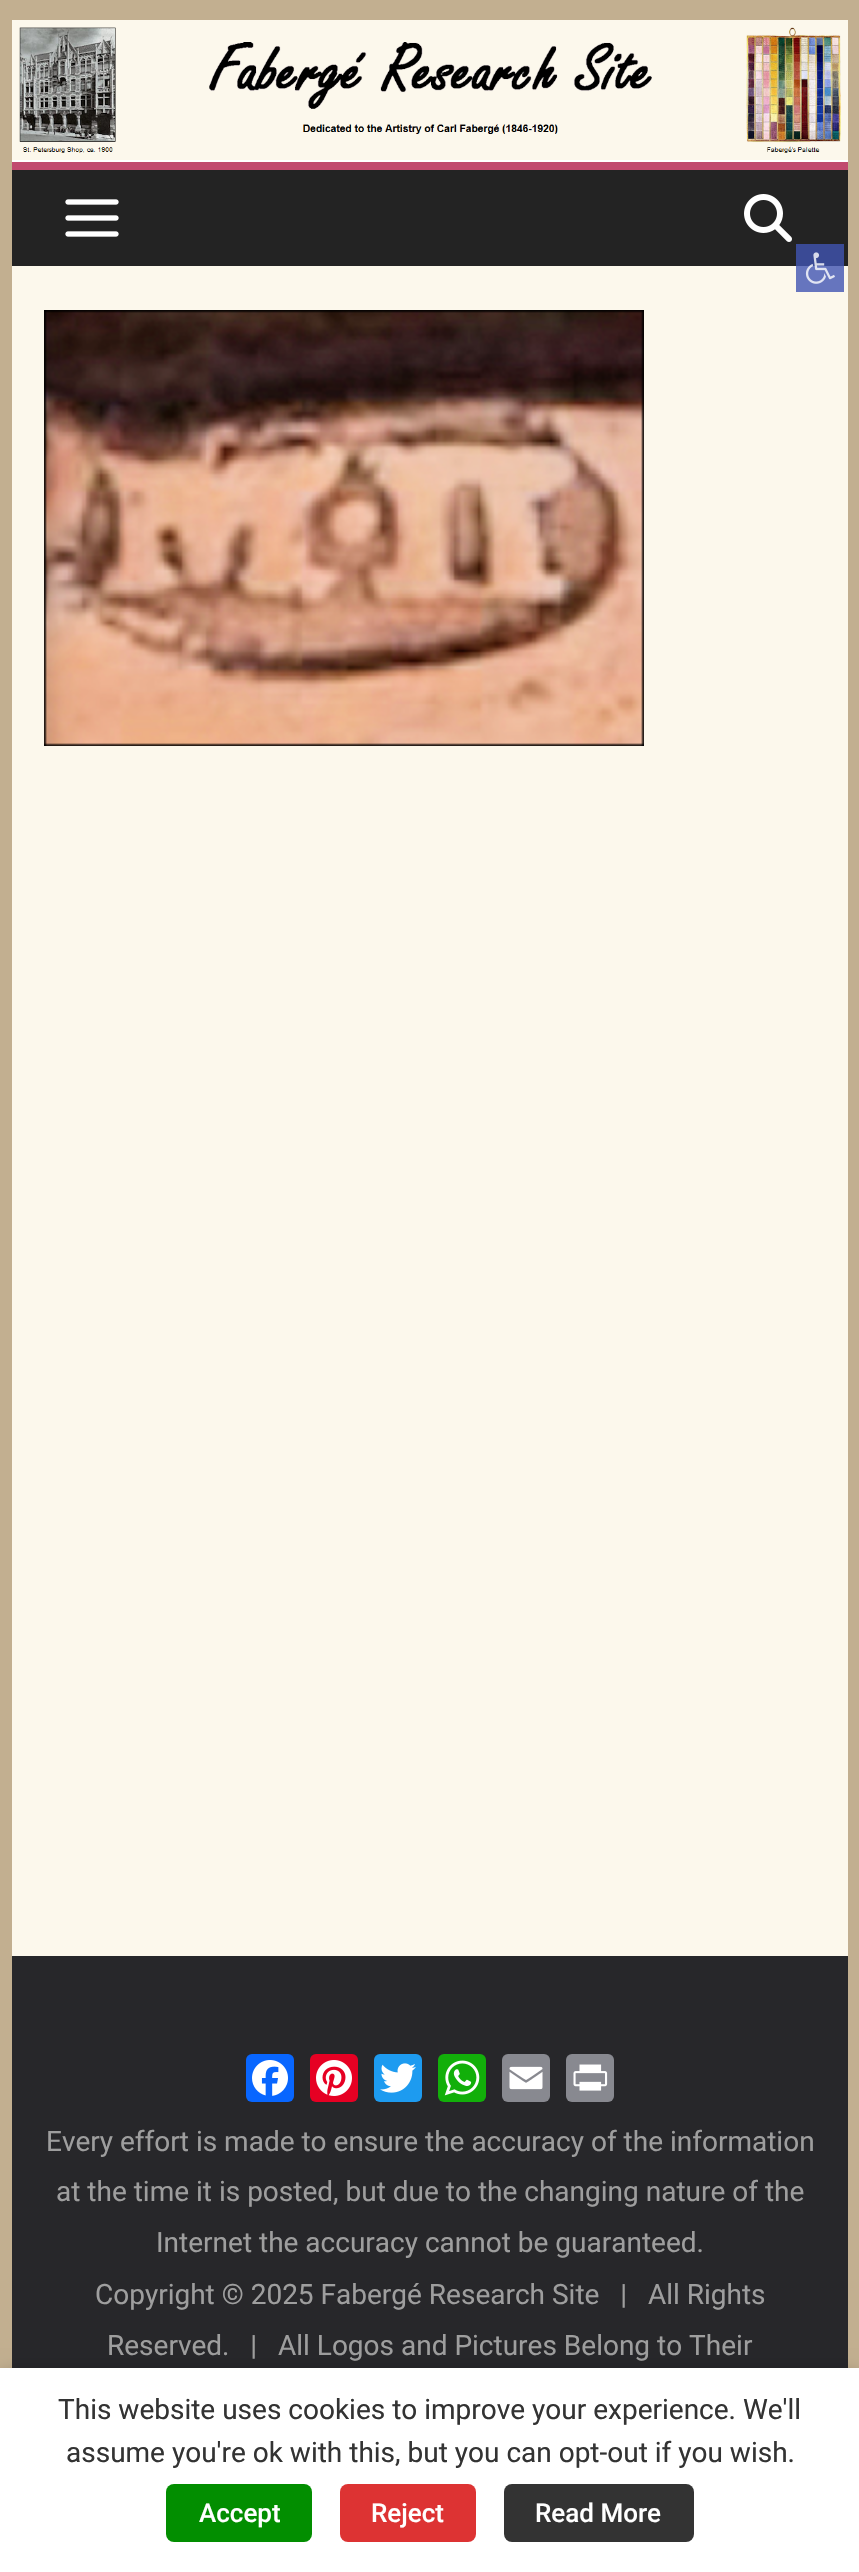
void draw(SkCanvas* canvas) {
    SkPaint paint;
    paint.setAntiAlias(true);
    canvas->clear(0xFFC2AF90);
    paint.setColor(0xFF232323);
    canvas->drawRect(SkRect::MakeXYWH(12, 170, 836, 96), paint);
    paint.setColor(0xFF3A4A95);
    canvas->drawRect(SkRect::MakeXYWH(796, 244, 48, 22), paint);
    paint.setColor(0xFFFCF8EC);
    canvas->drawRect(SkRect::MakeXYWH(12, 266, 836, 1690), paint);
    paint.setColor(0xFF6675BE);
    canvas->drawRect(SkRect::MakeXYWH(796, 266, 48, 26), paint);
    canvas->drawImageRect(SkImages::DeferredFromEncodedData(SkData::MakeFromFileName("img1.png")), SkRect::MakeXYWH(805, 252, 30, 32), SkSamplingOptions());
    paint.setColor(0xFFFFFFFF);
    canvas->drawRect(SkRect::MakeXYWH(12, 160, 836, 2), paint);
    canvas->drawImageRect(SkImages::DeferredFromEncodedData(SkData::MakeFromFileName("img2.png")), SkRect::MakeXYWH(12, 20, 836, 140), SkSamplingOptions());
    paint.setColor(0xFFC1496F);
    canvas->drawRect(SkRect::MakeXYWH(12, 162, 836, 8), paint);
    canvas->drawImageRect(SkImages::DeferredFromEncodedData(SkData::MakeFromFileName("img3.png")), SkRect::MakeXYWH(65, 199, 54, 38), SkSamplingOptions());
    canvas->drawImageRect(SkImages::DeferredFromEncodedData(SkData::MakeFromFileName("img4.png")), SkRect::MakeXYWH(744, 194, 48, 48), SkSamplingOptions());
    canvas->drawImageRect(SkImages::DeferredFromEncodedData(SkData::MakeFromFileName("img5.png")), SkRect::MakeXYWH(44, 310, 600, 436), SkSamplingOptions());
    paint.setColor(0xFF27272A);
    canvas->drawRect(SkRect::MakeXYWH(12, 1956, 836, 412), paint);
    paint.setColor(0xFF0866FF);
    canvas->drawRoundRect(SkRect::MakeXYWH(246, 2054, 48, 48), 6, 6, paint);
    canvas->drawImageRect(SkImages::DeferredFromEncodedData(SkData::MakeFromFileName("img6.png")), SkRect::MakeXYWH(252, 2060, 36, 36), SkSamplingOptions());
    paint.setColor(0xFFE60023);
    canvas->drawRoundRect(SkRect::MakeXYWH(310, 2054, 48, 48), 6, 6, paint);
    canvas->drawImageRect(SkImages::DeferredFromEncodedData(SkData::MakeFromFileName("img7.png")), SkRect::MakeXYWH(316, 2060, 36, 36), SkSamplingOptions());
    paint.setColor(0xFF1D9BF0);
    canvas->drawRoundRect(SkRect::MakeXYWH(374, 2054, 48, 48), 6, 6, paint);
    canvas->drawImageRect(SkImages::DeferredFromEncodedData(SkData::MakeFromFileName("img8.png")), SkRect::MakeXYWH(380, 2063, 36, 30), SkSamplingOptions());
    paint.setColor(0xFF12AF0A);
    canvas->drawRoundRect(SkRect::MakeXYWH(438, 2054, 48, 48), 6, 6, paint);
    canvas->drawImageRect(SkImages::DeferredFromEncodedData(SkData::MakeFromFileName("img9.png")), SkRect::MakeXYWH(444, 2060, 36, 36), SkSamplingOptions());
    paint.setColor(0xFF888990);
    canvas->drawRoundRect(SkRect::MakeXYWH(502, 2054, 48, 48), 6, 6, paint);
    canvas->drawImageRect(SkImages::DeferredFromEncodedData(SkData::MakeFromFileName("img10.png")), SkRect::MakeXYWH(509, 2066, 34, 24), SkSamplingOptions());
    canvas->drawRoundRect(SkRect::MakeXYWH(566, 2054, 48, 48), 6, 6, paint);
    canvas->drawImageRect(SkImages::DeferredFromEncodedData(SkData::MakeFromFileName("img11.png")), SkRect::MakeXYWH(573, 2064, 35, 27), SkSamplingOptions());
    SkFont font1(fontMgr->matchFamilyStyle("Roboto", SkFontStyle::Normal()), 28);
    font1.setSubpixel(true);
    paint.setColor(0xFF9E9E9E);
    canvas->drawString("Every effort is made to ensure the accuracy of the information", 46, 2151, font1, paint);
    canvas->drawString("at the time it is posted, but due to the changing nature of the", 56, 2201, font1, paint);
    canvas->drawString("Internet the accuracy cannot be guaranteed.", 156, 2252, font1, paint);
    canvas->drawString("Copyright © 2025 Fabergé Research Site   |   All Rights", 95, 2304, font1, paint);
    canvas->drawString("Reserved.   |   All Logos and Pictures Belong to Their", 107, 2355, font1, paint);
    paint.setColor(0x80000000);
    paint.setMaskFilter(SkMaskFilter::MakeBlur(kNormal_SkBlurStyle, 10));
    canvas->drawRect(SkRect::MakeXYWH(0, 2378, 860, 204), paint);
    paint.setMaskFilter(nullptr);
    paint.setColor(0xFFFFFFFF);
    canvas->drawRect(SkRect::MakeXYWH(0, 2368, 859, 204), paint);
    paint.setColor(0xFF333333);
    canvas->drawString("This website uses cookies to improve your experience. We'll", 58, 2419, font1, paint);
    canvas->drawString("assume you're ok with this, but you can opt-out if you wish.", 66, 2462, font1, paint);
    paint.setColor(0xFF028E00);
    canvas->drawRoundRect(SkRect::MakeXYWH(166, 2484, 146, 58), 8, 8, paint);
    SkFont font2(fontMgr->matchFamilyStyle("Roboto", SkFontStyle(500, SkFontStyle::kNormal_Width, SkFontStyle::kUpright_Slant)), 26);
    font2.setSubpixel(true);
    paint.setColor(0xFFFFFFFF);
    canvas->drawString("Accept", 199, 2522, font2, paint);
    paint.setColor(0xFFDD3333);
    canvas->drawRoundRect(SkRect::MakeXYWH(340, 2484, 136, 58), 8, 8, paint);
    paint.setColor(0xFFFFFFFF);
    canvas->drawString("Reject", 371, 2522, font2, paint);
    paint.setColor(0xFF333333);
    canvas->drawRoundRect(SkRect::MakeXYWH(504, 2484, 190, 58), 8, 8, paint);
    paint.setColor(0xFFFFFFFF);
    canvas->drawString("Read More", 535, 2522, font2, paint);
}
